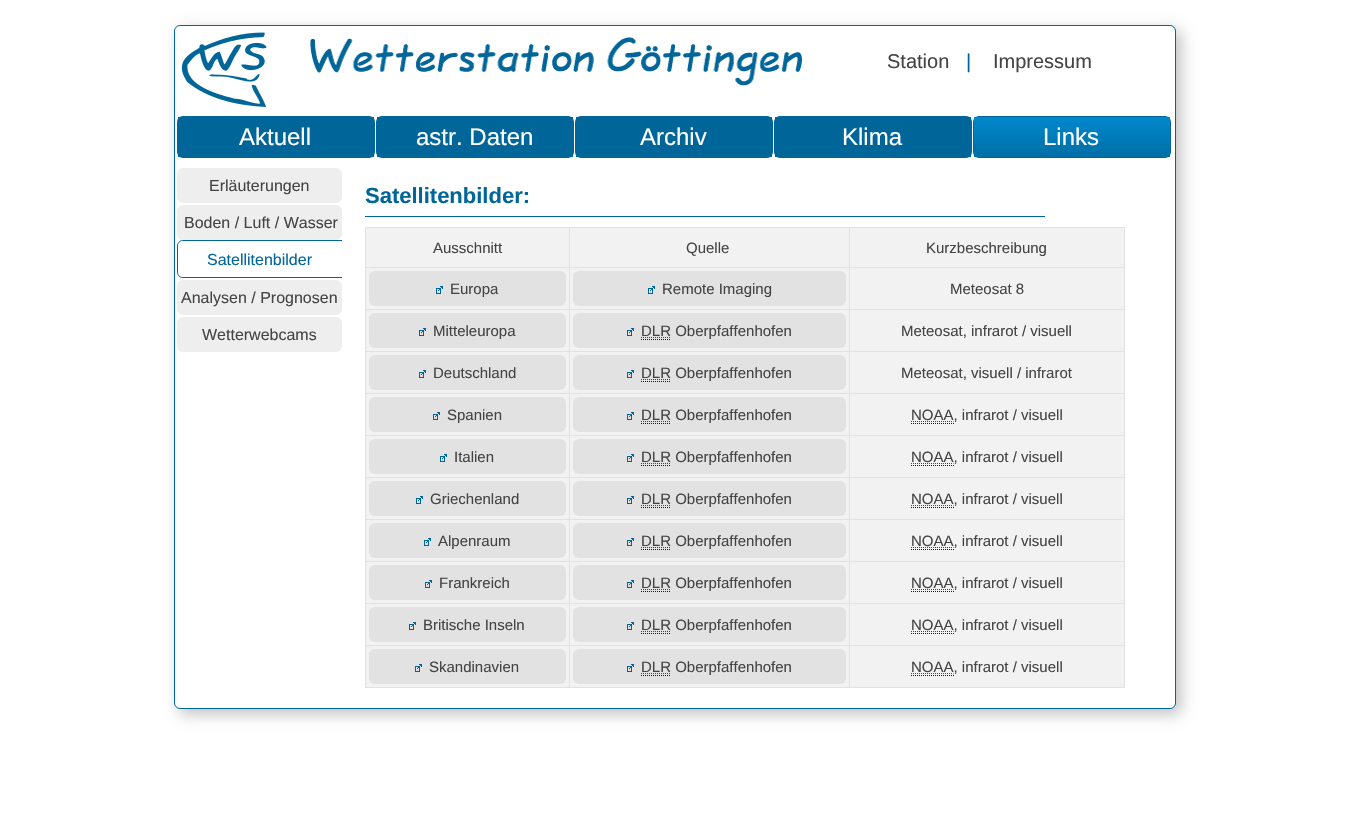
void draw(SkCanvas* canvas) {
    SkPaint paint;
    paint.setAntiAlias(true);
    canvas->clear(0xFFFFFFFF);
    paint.setColor(0xFFC0C0C0);
    paint.setMaskFilter(SkMaskFilter::MakeBlur(kNormal_SkBlurStyle, 7.5f));
    canvas->drawRoundRect(SkRect::MakeXYWH(179, 30, 1002, 684), 6, 6, paint);
    paint.setMaskFilter(nullptr);
    paint.setColor(0xFFFFFFFF);
    canvas->drawRoundRect(SkRect::MakeXYWH(174.5f, 25.5f, 1001, 683), 5.5f, 5.5f, paint);
    paint.setStyle(SkPaint::kStroke_Style);
    paint.setStrokeWidth(1);
    paint.setColor(0xFF006699);
    canvas->drawRoundRect(SkRect::MakeXYWH(174.5f, 25.5f, 1001, 683), 5.5f, 5.5f, paint);
    canvas->drawImageRect(SkImages::DeferredFromEncodedData(SkData::MakeFromFileName("img1.png")), SkRect::MakeXYWH(181, 32, 86, 75), SkSamplingOptions());
    canvas->drawImageRect(SkImages::DeferredFromEncodedData(SkData::MakeFromFileName("img2.png")), SkRect::MakeXYWH(309, 37, 494, 49), SkSamplingOptions());
    SkFont font1(fontMgr->matchFamilyStyle("Liberation Sans", SkFontStyle::Normal()), 20);
    font1.setSubpixel(true);
    paint.setStyle(SkPaint::kFill_Style);
    paint.setColor(0xFF444444);
    canvas->drawString("Station", 887, 68, font1, paint);
    paint.setColor(0xFF006699);
    canvas->drawString("|", 966, 68, font1, paint);
    paint.setColor(0xFF444444);
    canvas->drawString("Impressum", 993, 68, font1, paint);
    paint.setStyle(SkPaint::kStroke_Style);
    paint.setColor(0xFF006699);
    canvas->drawRoundRect(SkRect::MakeXYWH(177.5f, 116.5f, 197, 41), 5.5f, 5.5f, paint);
    paint.setStyle(SkPaint::kFill_Style);
    canvas->drawRect(SkRect::MakeXYWH(178, 117, 196, 40), paint);
    SkFont font2(fontMgr->matchFamilyStyle("Liberation Sans", SkFontStyle::Normal()), 24);
    font2.setSubpixel(true);
    paint.setColor(0xFFFFFFFF);
    canvas->drawString("Aktuell", 239, 145, font2, paint);
    paint.setStyle(SkPaint::kStroke_Style);
    paint.setColor(0xFF006699);
    canvas->drawRoundRect(SkRect::MakeXYWH(376.5f, 116.5f, 197, 41), 5.5f, 5.5f, paint);
    paint.setStyle(SkPaint::kFill_Style);
    canvas->drawRect(SkRect::MakeXYWH(377, 117, 196, 40), paint);
    paint.setColor(0xFFFFFFFF);
    canvas->drawString("astr. Daten", 416, 145, font2, paint);
    paint.setStyle(SkPaint::kStroke_Style);
    paint.setColor(0xFF006699);
    canvas->drawRoundRect(SkRect::MakeXYWH(575.5f, 116.5f, 197, 41), 5.5f, 5.5f, paint);
    paint.setStyle(SkPaint::kFill_Style);
    canvas->drawRect(SkRect::MakeXYWH(576, 117, 196, 40), paint);
    paint.setColor(0xFFFFFFFF);
    canvas->drawString("Archiv", 640, 145, font2, paint);
    paint.setStyle(SkPaint::kStroke_Style);
    paint.setColor(0xFF006699);
    canvas->drawRoundRect(SkRect::MakeXYWH(774.5f, 116.5f, 197, 41), 5.5f, 5.5f, paint);
    paint.setStyle(SkPaint::kFill_Style);
    canvas->drawRect(SkRect::MakeXYWH(775, 117, 196, 40), paint);
    paint.setColor(0xFFFFFFFF);
    canvas->drawString("Klima", 842, 145, font2, paint);
    paint.setStyle(SkPaint::kStroke_Style);
    paint.setColor(0xFF006699);
    canvas->drawRoundRect(SkRect::MakeXYWH(973.5f, 116.5f, 197, 41), 5.5f, 5.5f, paint);
    paint.setStyle(SkPaint::kFill_Style);
    {
        const SkColor colors[] = {0xFF006EA6, 0xFF0088CC};
        const float stops[] = {0, 1};
        const SkPoint ends[] = {{1072, 157}, {1072, 117}};
        paint.setShader(SkGradientShader::MakeLinear(ends, colors, stops, 2, SkTileMode::kClamp));
        paint.setAlpha(255);
    }
    canvas->drawRect(SkRect::MakeXYWH(974, 117, 196, 40), paint);
    paint.setShader(nullptr);
    paint.setColor(0xFFFFFFFF);
    canvas->drawString("Links", 1043, 145, font2, paint);
    paint.setColor(0xFFEEEEEE);
    canvas->drawRoundRect(SkRect::MakeXYWH(177, 168, 165, 35), 6, 6, paint);
    SkFont font3(fontMgr->matchFamilyStyle("Liberation Sans", SkFontStyle::Normal()), 16);
    font3.setSubpixel(true);
    paint.setColor(0xFF444444);
    canvas->drawString("Erläuterungen", 209, 191, font3, paint);
    paint.setColor(0xFFEEEEEE);
    canvas->drawRoundRect(SkRect::MakeXYWH(177, 205, 165, 35), 6, 6, paint);
    paint.setColor(0xFF444444);
    canvas->drawString("Boden / Luft / Wasser", 184, 228, font3, paint);
    paint.setColor(0xFF006699);
    canvas->drawPath(SkPathBuilder(SkPathFillType::kEvenOdd).moveTo(183, 240).lineTo(342, 240).lineTo(342, 278).lineTo(183, 278).cubicTo(180, 278, 177, 275, 177, 272).lineTo(177, 246).cubicTo(177, 243, 180, 240, 183, 240).close().moveTo(183, 241).lineTo(342, 241).lineTo(342, 277).lineTo(183, 277).cubicTo(180, 277, 178, 275, 178, 272).lineTo(178, 246).cubicTo(178, 243, 180, 241, 183, 241).close().detach(), paint);
    canvas->drawString("Satellitenbilder", 207, 265, font3, paint);
    paint.setColor(0xFFEEEEEE);
    canvas->drawRoundRect(SkRect::MakeXYWH(177, 280, 165, 35), 6, 6, paint);
    paint.setColor(0xFF444444);
    canvas->drawString("Analysen / Prognosen", 181, 303, font3, paint);
    paint.setColor(0xFFEEEEEE);
    canvas->drawRoundRect(SkRect::MakeXYWH(177, 317, 165, 35), 6, 6, paint);
    paint.setColor(0xFF444444);
    canvas->drawString("Wetterwebcams", 202, 340, font3, paint);
    paint.setColor(0xFF006699);
    canvas->drawRect(SkRect::MakeXYWH(365, 216, 680, 1), paint);
    SkFont font4(fontMgr->matchFamilyStyle("Liberation Sans", SkFontStyle::Bold()), 22);
    font4.setSubpixel(true);
    canvas->drawString("Satellitenbilder:", 365, 203, font4, paint);
    paint.setColor(0xFFF2F2F2);
    canvas->drawRect(SkRect::MakeXYWH(366, 228, 203, 39), paint);
    paint.setColor(0xFFE2E2E2);
    canvas->drawRect(SkRect::MakeXYWH(849, 227, 276, 1), paint);
    canvas->drawRect(SkRect::MakeXYWH(849, 267, 276, 1), paint);
    canvas->drawRect(SkRect::MakeXYWH(849, 309, 276, 1), paint);
    canvas->drawRect(SkRect::MakeXYWH(849, 351, 276, 1), paint);
    canvas->drawRect(SkRect::MakeXYWH(849, 393, 276, 1), paint);
    canvas->drawRect(SkRect::MakeXYWH(849, 435, 276, 1), paint);
    canvas->drawRect(SkRect::MakeXYWH(849, 477, 276, 1), paint);
    canvas->drawRect(SkRect::MakeXYWH(849, 519, 276, 1), paint);
    canvas->drawRect(SkRect::MakeXYWH(849, 561, 276, 1), paint);
    canvas->drawRect(SkRect::MakeXYWH(849, 603, 276, 1), paint);
    canvas->drawRect(SkRect::MakeXYWH(849, 645, 276, 1), paint);
    canvas->drawRect(SkRect::MakeXYWH(1124, 645, 1, 43), paint);
    canvas->drawRect(SkRect::MakeXYWH(849, 687, 276, 1), paint);
    canvas->drawRect(SkRect::MakeXYWH(849, 645, 1, 43), paint);
    canvas->drawRect(SkRect::MakeXYWH(569, 645, 281, 1), paint);
    canvas->drawRect(SkRect::MakeXYWH(849, 603, 1, 43), paint);
    canvas->drawRect(SkRect::MakeXYWH(569, 603, 281, 1), paint);
    canvas->drawRect(SkRect::MakeXYWH(849, 561, 1, 43), paint);
    canvas->drawRect(SkRect::MakeXYWH(569, 561, 281, 1), paint);
    canvas->drawRect(SkRect::MakeXYWH(849, 519, 1, 43), paint);
    canvas->drawRect(SkRect::MakeXYWH(569, 519, 281, 1), paint);
    canvas->drawRect(SkRect::MakeXYWH(849, 477, 1, 43), paint);
    canvas->drawRect(SkRect::MakeXYWH(569, 477, 281, 1), paint);
    canvas->drawRect(SkRect::MakeXYWH(849, 435, 1, 43), paint);
    canvas->drawRect(SkRect::MakeXYWH(569, 435, 281, 1), paint);
    canvas->drawRect(SkRect::MakeXYWH(849, 393, 1, 43), paint);
    canvas->drawRect(SkRect::MakeXYWH(569, 393, 281, 1), paint);
    canvas->drawRect(SkRect::MakeXYWH(849, 351, 1, 43), paint);
    canvas->drawRect(SkRect::MakeXYWH(569, 351, 281, 1), paint);
    canvas->drawRect(SkRect::MakeXYWH(849, 309, 1, 43), paint);
    canvas->drawRect(SkRect::MakeXYWH(569, 309, 281, 1), paint);
    canvas->drawRect(SkRect::MakeXYWH(849, 267, 1, 43), paint);
    canvas->drawRect(SkRect::MakeXYWH(569, 267, 281, 1), paint);
    canvas->drawRect(SkRect::MakeXYWH(849, 227, 1, 41), paint);
    canvas->drawRect(SkRect::MakeXYWH(569, 227, 281, 1), paint);
    canvas->drawRect(SkRect::MakeXYWH(569, 687, 281, 1), paint);
    canvas->drawRect(SkRect::MakeXYWH(569, 645, 1, 43), paint);
    canvas->drawRect(SkRect::MakeXYWH(365, 645, 205, 1), paint);
    canvas->drawRect(SkRect::MakeXYWH(569, 603, 1, 43), paint);
    canvas->drawRect(SkRect::MakeXYWH(365, 603, 205, 1), paint);
    canvas->drawRect(SkRect::MakeXYWH(569, 561, 1, 43), paint);
    canvas->drawRect(SkRect::MakeXYWH(365, 561, 205, 1), paint);
    canvas->drawRect(SkRect::MakeXYWH(569, 519, 1, 43), paint);
    canvas->drawRect(SkRect::MakeXYWH(365, 519, 205, 1), paint);
    canvas->drawRect(SkRect::MakeXYWH(569, 477, 1, 43), paint);
    canvas->drawRect(SkRect::MakeXYWH(365, 477, 205, 1), paint);
    canvas->drawRect(SkRect::MakeXYWH(569, 435, 1, 43), paint);
    canvas->drawRect(SkRect::MakeXYWH(365, 435, 205, 1), paint);
    canvas->drawRect(SkRect::MakeXYWH(569, 393, 1, 43), paint);
    canvas->drawRect(SkRect::MakeXYWH(365, 393, 205, 1), paint);
    canvas->drawRect(SkRect::MakeXYWH(569, 351, 1, 43), paint);
    canvas->drawRect(SkRect::MakeXYWH(365, 351, 205, 1), paint);
    canvas->drawRect(SkRect::MakeXYWH(569, 309, 1, 43), paint);
    canvas->drawRect(SkRect::MakeXYWH(365, 309, 205, 1), paint);
    canvas->drawRect(SkRect::MakeXYWH(569, 267, 1, 43), paint);
    canvas->drawRect(SkRect::MakeXYWH(365, 267, 205, 1), paint);
    canvas->drawRect(SkRect::MakeXYWH(569, 227, 1, 41), paint);
    canvas->drawRect(SkRect::MakeXYWH(365, 227, 205, 1), paint);
    canvas->drawRect(SkRect::MakeXYWH(365, 687, 205, 1), paint);
    canvas->drawRect(SkRect::MakeXYWH(365, 645, 1, 43), paint);
    canvas->drawRect(SkRect::MakeXYWH(365, 603, 1, 43), paint);
    canvas->drawRect(SkRect::MakeXYWH(365, 561, 1, 43), paint);
    canvas->drawRect(SkRect::MakeXYWH(365, 519, 1, 43), paint);
    canvas->drawRect(SkRect::MakeXYWH(365, 477, 1, 43), paint);
    canvas->drawRect(SkRect::MakeXYWH(365, 435, 1, 43), paint);
    canvas->drawRect(SkRect::MakeXYWH(365, 393, 1, 43), paint);
    canvas->drawRect(SkRect::MakeXYWH(365, 351, 1, 43), paint);
    canvas->drawRect(SkRect::MakeXYWH(365, 309, 1, 43), paint);
    canvas->drawRect(SkRect::MakeXYWH(365, 267, 1, 43), paint);
    canvas->drawRect(SkRect::MakeXYWH(365, 227, 1, 41), paint);
    SkFont font5(fontMgr->matchFamilyStyle("Liberation Sans", SkFontStyle::Normal()), 15);
    font5.setSubpixel(true);
    paint.setColor(0xFF444444);
    canvas->drawString("Ausschnitt", 433, 253, font5, paint);
    paint.setColor(0xFFF2F2F2);
    canvas->drawRect(SkRect::MakeXYWH(570, 228, 279, 39), paint);
    paint.setColor(0xFF444444);
    canvas->drawString("Quelle", 686, 253, font5, paint);
    paint.setColor(0xFFF2F2F2);
    canvas->drawRect(SkRect::MakeXYWH(850, 228, 274, 39), paint);
    paint.setColor(0xFFE2E2E2);
    canvas->drawRect(SkRect::MakeXYWH(1124, 603, 1, 43), paint);
    canvas->drawRect(SkRect::MakeXYWH(1124, 561, 1, 43), paint);
    canvas->drawRect(SkRect::MakeXYWH(1124, 519, 1, 43), paint);
    canvas->drawRect(SkRect::MakeXYWH(1124, 477, 1, 43), paint);
    canvas->drawRect(SkRect::MakeXYWH(1124, 435, 1, 43), paint);
    canvas->drawRect(SkRect::MakeXYWH(1124, 393, 1, 43), paint);
    canvas->drawRect(SkRect::MakeXYWH(1124, 351, 1, 43), paint);
    canvas->drawRect(SkRect::MakeXYWH(1124, 309, 1, 43), paint);
    canvas->drawRect(SkRect::MakeXYWH(1124, 267, 1, 43), paint);
    canvas->drawRect(SkRect::MakeXYWH(1124, 227, 1, 41), paint);
    paint.setColor(0xFF444444);
    canvas->drawString("Kurzbeschreibung", 926, 253, font5, paint);
    paint.setColor(0xFFF2F2F2);
    canvas->drawRect(SkRect::MakeXYWH(366, 268, 203, 41), paint);
    paint.setColor(0xFFE2E2E2);
    canvas->drawRoundRect(SkRect::MakeXYWH(369, 271, 197, 35), 6, 6, paint);
    canvas->drawImageRect(SkImages::DeferredFromEncodedData(SkData::MakeFromFileName("img3.png")), SkRect::MakeXYWH(436, 286, 7, 8), SkSamplingOptions());
    paint.setColor(0xFF444444);
    canvas->drawString("Europa", 450, 294, font5, paint);
    paint.setColor(0xFFF2F2F2);
    canvas->drawRect(SkRect::MakeXYWH(570, 268, 279, 41), paint);
    paint.setColor(0xFFE2E2E2);
    canvas->drawRoundRect(SkRect::MakeXYWH(573, 271, 273, 35), 6, 6, paint);
    canvas->drawImageRect(SkImages::DeferredFromEncodedData(SkData::MakeFromFileName("img3.png")), SkRect::MakeXYWH(648, 286, 7, 8), SkSamplingOptions());
    paint.setColor(0xFF444444);
    canvas->drawString("Remote Imaging", 662, 294, font5, paint);
    paint.setColor(0xFFF2F2F2);
    canvas->drawRect(SkRect::MakeXYWH(850, 268, 274, 41), paint);
    paint.setColor(0xFF444444);
    canvas->drawString("Meteosat 8", 950, 294, font5, paint);
    paint.setColor(0xFFF2F2F2);
    canvas->drawRect(SkRect::MakeXYWH(366, 310, 203, 41), paint);
    paint.setColor(0xFFE2E2E2);
    canvas->drawRoundRect(SkRect::MakeXYWH(369, 313, 197, 35), 6, 6, paint);
    canvas->drawImageRect(SkImages::DeferredFromEncodedData(SkData::MakeFromFileName("img3.png")), SkRect::MakeXYWH(419, 328, 7, 8), SkSamplingOptions());
    paint.setColor(0xFF444444);
    canvas->drawString("Mitteleuropa", 433, 336, font5, paint);
    paint.setColor(0xFFF2F2F2);
    canvas->drawRect(SkRect::MakeXYWH(570, 310, 279, 41), paint);
    paint.setColor(0xFFE2E2E2);
    canvas->drawRoundRect(SkRect::MakeXYWH(573, 313, 273, 35), 6, 6, paint);
    canvas->drawImageRect(SkImages::DeferredFromEncodedData(SkData::MakeFromFileName("img3.png")), SkRect::MakeXYWH(627, 328, 7, 8), SkSamplingOptions());
    paint.setStyle(SkPaint::kStroke_Style);
    paint.setColor(0xFF002233);
    paint.setPathEffect(SkDashPathEffect::Make({{1, 1}}, 0));
    canvas->drawPath(SkPathBuilder().moveTo(641, 339.5f).lineTo(671, 339.5f).detach(), paint);
    paint.setPathEffect(nullptr);
    paint.setColor(0xFF444444);
    paint.setPathEffect(SkDashPathEffect::Make({{1, 1}}, 0));
    canvas->drawPath(SkPathBuilder().moveTo(641, 337.5f).lineTo(671, 337.5f).detach(), paint);
    paint.setPathEffect(nullptr);
    paint.setStyle(SkPaint::kFill_Style);
    canvas->drawString("DLR Oberpfaffenhofen", 641, 336, font5, paint);
    paint.setColor(0xFFF2F2F2);
    canvas->drawRect(SkRect::MakeXYWH(850, 310, 274, 41), paint);
    paint.setColor(0xFF444444);
    canvas->drawString("Meteosat, infrarot / visuell", 901, 336, font5, paint);
    paint.setColor(0xFFF2F2F2);
    canvas->drawRect(SkRect::MakeXYWH(366, 352, 203, 41), paint);
    paint.setColor(0xFFE2E2E2);
    canvas->drawRoundRect(SkRect::MakeXYWH(369, 355, 197, 35), 6, 6, paint);
    canvas->drawImageRect(SkImages::DeferredFromEncodedData(SkData::MakeFromFileName("img3.png")), SkRect::MakeXYWH(419, 370, 7, 8), SkSamplingOptions());
    paint.setColor(0xFF444444);
    canvas->drawString("Deutschland", 433, 378, font5, paint);
    paint.setColor(0xFFF2F2F2);
    canvas->drawRect(SkRect::MakeXYWH(570, 352, 279, 41), paint);
    paint.setColor(0xFFE2E2E2);
    canvas->drawRoundRect(SkRect::MakeXYWH(573, 355, 273, 35), 6, 6, paint);
    canvas->drawImageRect(SkImages::DeferredFromEncodedData(SkData::MakeFromFileName("img3.png")), SkRect::MakeXYWH(627, 370, 7, 8), SkSamplingOptions());
    paint.setStyle(SkPaint::kStroke_Style);
    paint.setColor(0xFF002233);
    paint.setPathEffect(SkDashPathEffect::Make({{1, 1}}, 0));
    canvas->drawPath(SkPathBuilder().moveTo(641, 381.5f).lineTo(671, 381.5f).detach(), paint);
    paint.setPathEffect(nullptr);
    paint.setColor(0xFF444444);
    paint.setPathEffect(SkDashPathEffect::Make({{1, 1}}, 0));
    canvas->drawPath(SkPathBuilder().moveTo(641, 379.5f).lineTo(671, 379.5f).detach(), paint);
    paint.setPathEffect(nullptr);
    paint.setStyle(SkPaint::kFill_Style);
    canvas->drawString("DLR Oberpfaffenhofen", 641, 378, font5, paint);
    paint.setColor(0xFFF2F2F2);
    canvas->drawRect(SkRect::MakeXYWH(850, 352, 274, 41), paint);
    paint.setColor(0xFF444444);
    canvas->drawString("Meteosat, visuell / infrarot", 901, 378, font5, paint);
    paint.setColor(0xFFF2F2F2);
    canvas->drawRect(SkRect::MakeXYWH(366, 394, 203, 41), paint);
    paint.setColor(0xFFE2E2E2);
    canvas->drawRoundRect(SkRect::MakeXYWH(369, 397, 197, 35), 6, 6, paint);
    canvas->drawImageRect(SkImages::DeferredFromEncodedData(SkData::MakeFromFileName("img3.png")), SkRect::MakeXYWH(433, 412, 7, 8), SkSamplingOptions());
    paint.setColor(0xFF444444);
    canvas->drawString("Spanien", 447, 420, font5, paint);
    paint.setColor(0xFFF2F2F2);
    canvas->drawRect(SkRect::MakeXYWH(570, 394, 279, 41), paint);
    paint.setColor(0xFFE2E2E2);
    canvas->drawRoundRect(SkRect::MakeXYWH(573, 397, 273, 35), 6, 6, paint);
    canvas->drawImageRect(SkImages::DeferredFromEncodedData(SkData::MakeFromFileName("img3.png")), SkRect::MakeXYWH(627, 412, 7, 8), SkSamplingOptions());
    paint.setStyle(SkPaint::kStroke_Style);
    paint.setColor(0xFF002233);
    paint.setPathEffect(SkDashPathEffect::Make({{1, 1}}, 0));
    canvas->drawPath(SkPathBuilder().moveTo(641, 423.5f).lineTo(671, 423.5f).detach(), paint);
    paint.setPathEffect(nullptr);
    paint.setColor(0xFF444444);
    paint.setPathEffect(SkDashPathEffect::Make({{1, 1}}, 0));
    canvas->drawPath(SkPathBuilder().moveTo(641, 421.5f).lineTo(671, 421.5f).detach(), paint);
    paint.setPathEffect(nullptr);
    paint.setStyle(SkPaint::kFill_Style);
    canvas->drawString("DLR Oberpfaffenhofen", 641, 420, font5, paint);
    paint.setColor(0xFFF2F2F2);
    canvas->drawRect(SkRect::MakeXYWH(850, 394, 274, 41), paint);
    paint.setStyle(SkPaint::kStroke_Style);
    paint.setColor(0xFF444444);
    paint.setPathEffect(SkDashPathEffect::Make({{1, 1}}, 0));
    canvas->drawPath(SkPathBuilder().moveTo(911, 421.5f).lineTo(953.5f, 421.5f).detach(), paint);
    paint.setPathEffect(nullptr);
    paint.setStyle(SkPaint::kFill_Style);
    canvas->drawString("NOAA, infrarot / visuell", 911, 420, font5, paint);
    paint.setStyle(SkPaint::kStroke_Style);
    paint.setColor(0xFF002233);
    paint.setPathEffect(SkDashPathEffect::Make({{1, 1}}, 0));
    canvas->drawPath(SkPathBuilder().moveTo(911, 423.5f).lineTo(954, 423.5f).detach(), paint);
    paint.setPathEffect(nullptr);
    paint.setStyle(SkPaint::kFill_Style);
    paint.setColor(0xFFF2F2F2);
    canvas->drawRect(SkRect::MakeXYWH(366, 436, 203, 41), paint);
    paint.setColor(0xFFE2E2E2);
    canvas->drawRoundRect(SkRect::MakeXYWH(369, 439, 197, 35), 6, 6, paint);
    canvas->drawImageRect(SkImages::DeferredFromEncodedData(SkData::MakeFromFileName("img3.png")), SkRect::MakeXYWH(440, 454, 7, 8), SkSamplingOptions());
    paint.setColor(0xFF444444);
    canvas->drawString("Italien", 454, 462, font5, paint);
    paint.setColor(0xFFF2F2F2);
    canvas->drawRect(SkRect::MakeXYWH(570, 436, 279, 41), paint);
    paint.setColor(0xFFE2E2E2);
    canvas->drawRoundRect(SkRect::MakeXYWH(573, 439, 273, 35), 6, 6, paint);
    canvas->drawImageRect(SkImages::DeferredFromEncodedData(SkData::MakeFromFileName("img3.png")), SkRect::MakeXYWH(627, 454, 7, 8), SkSamplingOptions());
    paint.setStyle(SkPaint::kStroke_Style);
    paint.setColor(0xFF002233);
    paint.setPathEffect(SkDashPathEffect::Make({{1, 1}}, 0));
    canvas->drawPath(SkPathBuilder().moveTo(641, 465.5f).lineTo(671, 465.5f).detach(), paint);
    paint.setPathEffect(nullptr);
    paint.setColor(0xFF444444);
    paint.setPathEffect(SkDashPathEffect::Make({{1, 1}}, 0));
    canvas->drawPath(SkPathBuilder().moveTo(641, 463.5f).lineTo(671, 463.5f).detach(), paint);
    paint.setPathEffect(nullptr);
    paint.setStyle(SkPaint::kFill_Style);
    canvas->drawString("DLR Oberpfaffenhofen", 641, 462, font5, paint);
    paint.setColor(0xFFF2F2F2);
    canvas->drawRect(SkRect::MakeXYWH(850, 436, 274, 41), paint);
    paint.setStyle(SkPaint::kStroke_Style);
    paint.setColor(0xFF444444);
    paint.setPathEffect(SkDashPathEffect::Make({{1, 1}}, 0));
    canvas->drawPath(SkPathBuilder().moveTo(911, 463.5f).lineTo(953.5f, 463.5f).detach(), paint);
    paint.setPathEffect(nullptr);
    paint.setStyle(SkPaint::kFill_Style);
    canvas->drawString("NOAA, infrarot / visuell", 911, 462, font5, paint);
    paint.setStyle(SkPaint::kStroke_Style);
    paint.setColor(0xFF002233);
    paint.setPathEffect(SkDashPathEffect::Make({{1, 1}}, 0));
    canvas->drawPath(SkPathBuilder().moveTo(911, 465.5f).lineTo(954, 465.5f).detach(), paint);
    paint.setPathEffect(nullptr);
    paint.setStyle(SkPaint::kFill_Style);
    paint.setColor(0xFFF2F2F2);
    canvas->drawRect(SkRect::MakeXYWH(366, 478, 203, 41), paint);
    paint.setColor(0xFFE2E2E2);
    canvas->drawRoundRect(SkRect::MakeXYWH(369, 481, 197, 35), 6, 6, paint);
    canvas->drawImageRect(SkImages::DeferredFromEncodedData(SkData::MakeFromFileName("img3.png")), SkRect::MakeXYWH(416, 496, 7, 8), SkSamplingOptions());
    paint.setColor(0xFF444444);
    canvas->drawString("Griechenland", 430, 504, font5, paint);
    paint.setColor(0xFFF2F2F2);
    canvas->drawRect(SkRect::MakeXYWH(570, 478, 279, 41), paint);
    paint.setColor(0xFFE2E2E2);
    canvas->drawRoundRect(SkRect::MakeXYWH(573, 481, 273, 35), 6, 6, paint);
    canvas->drawImageRect(SkImages::DeferredFromEncodedData(SkData::MakeFromFileName("img3.png")), SkRect::MakeXYWH(627, 496, 7, 8), SkSamplingOptions());
    paint.setStyle(SkPaint::kStroke_Style);
    paint.setColor(0xFF002233);
    paint.setPathEffect(SkDashPathEffect::Make({{1, 1}}, 0));
    canvas->drawPath(SkPathBuilder().moveTo(641, 507.5f).lineTo(671, 507.5f).detach(), paint);
    paint.setPathEffect(nullptr);
    paint.setColor(0xFF444444);
    paint.setPathEffect(SkDashPathEffect::Make({{1, 1}}, 0));
    canvas->drawPath(SkPathBuilder().moveTo(641, 505.5f).lineTo(671, 505.5f).detach(), paint);
    paint.setPathEffect(nullptr);
    paint.setStyle(SkPaint::kFill_Style);
    canvas->drawString("DLR Oberpfaffenhofen", 641, 504, font5, paint);
    paint.setColor(0xFFF2F2F2);
    canvas->drawRect(SkRect::MakeXYWH(850, 478, 274, 41), paint);
    paint.setStyle(SkPaint::kStroke_Style);
    paint.setColor(0xFF444444);
    paint.setPathEffect(SkDashPathEffect::Make({{1, 1}}, 0));
    canvas->drawPath(SkPathBuilder().moveTo(911, 505.5f).lineTo(953.5f, 505.5f).detach(), paint);
    paint.setPathEffect(nullptr);
    paint.setStyle(SkPaint::kFill_Style);
    canvas->drawString("NOAA, infrarot / visuell", 911, 504, font5, paint);
    paint.setStyle(SkPaint::kStroke_Style);
    paint.setColor(0xFF002233);
    paint.setPathEffect(SkDashPathEffect::Make({{1, 1}}, 0));
    canvas->drawPath(SkPathBuilder().moveTo(911, 507.5f).lineTo(954, 507.5f).detach(), paint);
    paint.setPathEffect(nullptr);
    paint.setStyle(SkPaint::kFill_Style);
    paint.setColor(0xFFF2F2F2);
    canvas->drawRect(SkRect::MakeXYWH(366, 520, 203, 41), paint);
    paint.setColor(0xFFE2E2E2);
    canvas->drawRoundRect(SkRect::MakeXYWH(369, 523, 197, 35), 6, 6, paint);
    canvas->drawImageRect(SkImages::DeferredFromEncodedData(SkData::MakeFromFileName("img3.png")), SkRect::MakeXYWH(424, 538, 7, 8), SkSamplingOptions());
    paint.setColor(0xFF444444);
    canvas->drawString("Alpenraum", 438, 546, font5, paint);
    paint.setColor(0xFFF2F2F2);
    canvas->drawRect(SkRect::MakeXYWH(570, 520, 279, 41), paint);
    paint.setColor(0xFFE2E2E2);
    canvas->drawRoundRect(SkRect::MakeXYWH(573, 523, 273, 35), 6, 6, paint);
    canvas->drawImageRect(SkImages::DeferredFromEncodedData(SkData::MakeFromFileName("img3.png")), SkRect::MakeXYWH(627, 538, 7, 8), SkSamplingOptions());
    paint.setStyle(SkPaint::kStroke_Style);
    paint.setColor(0xFF002233);
    paint.setPathEffect(SkDashPathEffect::Make({{1, 1}}, 0));
    canvas->drawPath(SkPathBuilder().moveTo(641, 549.5f).lineTo(671, 549.5f).detach(), paint);
    paint.setPathEffect(nullptr);
    paint.setColor(0xFF444444);
    paint.setPathEffect(SkDashPathEffect::Make({{1, 1}}, 0));
    canvas->drawPath(SkPathBuilder().moveTo(641, 547.5f).lineTo(671, 547.5f).detach(), paint);
    paint.setPathEffect(nullptr);
    paint.setStyle(SkPaint::kFill_Style);
    canvas->drawString("DLR Oberpfaffenhofen", 641, 546, font5, paint);
    paint.setColor(0xFFF2F2F2);
    canvas->drawRect(SkRect::MakeXYWH(850, 520, 274, 41), paint);
    paint.setStyle(SkPaint::kStroke_Style);
    paint.setColor(0xFF444444);
    paint.setPathEffect(SkDashPathEffect::Make({{1, 1}}, 0));
    canvas->drawPath(SkPathBuilder().moveTo(911, 547.5f).lineTo(953.5f, 547.5f).detach(), paint);
    paint.setPathEffect(nullptr);
    paint.setStyle(SkPaint::kFill_Style);
    canvas->drawString("NOAA, infrarot / visuell", 911, 546, font5, paint);
    paint.setStyle(SkPaint::kStroke_Style);
    paint.setColor(0xFF002233);
    paint.setPathEffect(SkDashPathEffect::Make({{1, 1}}, 0));
    canvas->drawPath(SkPathBuilder().moveTo(911, 549.5f).lineTo(954, 549.5f).detach(), paint);
    paint.setPathEffect(nullptr);
    paint.setStyle(SkPaint::kFill_Style);
    paint.setColor(0xFFF2F2F2);
    canvas->drawRect(SkRect::MakeXYWH(366, 562, 203, 41), paint);
    paint.setColor(0xFFE2E2E2);
    canvas->drawRoundRect(SkRect::MakeXYWH(369, 565, 197, 35), 6, 6, paint);
    canvas->drawImageRect(SkImages::DeferredFromEncodedData(SkData::MakeFromFileName("img3.png")), SkRect::MakeXYWH(425, 580, 7, 8), SkSamplingOptions());
    paint.setColor(0xFF444444);
    canvas->drawString("Frankreich", 439, 588, font5, paint);
    paint.setColor(0xFFF2F2F2);
    canvas->drawRect(SkRect::MakeXYWH(570, 562, 279, 41), paint);
    paint.setColor(0xFFE2E2E2);
    canvas->drawRoundRect(SkRect::MakeXYWH(573, 565, 273, 35), 6, 6, paint);
    canvas->drawImageRect(SkImages::DeferredFromEncodedData(SkData::MakeFromFileName("img3.png")), SkRect::MakeXYWH(627, 580, 7, 8), SkSamplingOptions());
    paint.setStyle(SkPaint::kStroke_Style);
    paint.setColor(0xFF002233);
    paint.setPathEffect(SkDashPathEffect::Make({{1, 1}}, 0));
    canvas->drawPath(SkPathBuilder().moveTo(641, 591.5f).lineTo(671, 591.5f).detach(), paint);
    paint.setPathEffect(nullptr);
    paint.setColor(0xFF444444);
    paint.setPathEffect(SkDashPathEffect::Make({{1, 1}}, 0));
    canvas->drawPath(SkPathBuilder().moveTo(641, 589.5f).lineTo(671, 589.5f).detach(), paint);
    paint.setPathEffect(nullptr);
    paint.setStyle(SkPaint::kFill_Style);
    canvas->drawString("DLR Oberpfaffenhofen", 641, 588, font5, paint);
    paint.setColor(0xFFF2F2F2);
    canvas->drawRect(SkRect::MakeXYWH(850, 562, 274, 41), paint);
    paint.setStyle(SkPaint::kStroke_Style);
    paint.setColor(0xFF444444);
    paint.setPathEffect(SkDashPathEffect::Make({{1, 1}}, 0));
    canvas->drawPath(SkPathBuilder().moveTo(911, 589.5f).lineTo(953.5f, 589.5f).detach(), paint);
    paint.setPathEffect(nullptr);
    paint.setStyle(SkPaint::kFill_Style);
    canvas->drawString("NOAA, infrarot / visuell", 911, 588, font5, paint);
    paint.setStyle(SkPaint::kStroke_Style);
    paint.setColor(0xFF002233);
    paint.setPathEffect(SkDashPathEffect::Make({{1, 1}}, 0));
    canvas->drawPath(SkPathBuilder().moveTo(911, 591.5f).lineTo(954, 591.5f).detach(), paint);
    paint.setPathEffect(nullptr);
    paint.setStyle(SkPaint::kFill_Style);
    paint.setColor(0xFFF2F2F2);
    canvas->drawRect(SkRect::MakeXYWH(366, 604, 203, 41), paint);
    paint.setColor(0xFFE2E2E2);
    canvas->drawRoundRect(SkRect::MakeXYWH(369, 607, 197, 35), 6, 6, paint);
    canvas->drawImageRect(SkImages::DeferredFromEncodedData(SkData::MakeFromFileName("img3.png")), SkRect::MakeXYWH(409, 622, 7, 8), SkSamplingOptions());
    paint.setColor(0xFF444444);
    canvas->drawString("Britische Inseln", 423, 630, font5, paint);
    paint.setColor(0xFFF2F2F2);
    canvas->drawRect(SkRect::MakeXYWH(570, 604, 279, 41), paint);
    paint.setColor(0xFFE2E2E2);
    canvas->drawRoundRect(SkRect::MakeXYWH(573, 607, 273, 35), 6, 6, paint);
    canvas->drawImageRect(SkImages::DeferredFromEncodedData(SkData::MakeFromFileName("img3.png")), SkRect::MakeXYWH(627, 622, 7, 8), SkSamplingOptions());
    paint.setStyle(SkPaint::kStroke_Style);
    paint.setColor(0xFF002233);
    paint.setPathEffect(SkDashPathEffect::Make({{1, 1}}, 0));
    canvas->drawPath(SkPathBuilder().moveTo(641, 633.5f).lineTo(671, 633.5f).detach(), paint);
    paint.setPathEffect(nullptr);
    paint.setColor(0xFF444444);
    paint.setPathEffect(SkDashPathEffect::Make({{1, 1}}, 0));
    canvas->drawPath(SkPathBuilder().moveTo(641, 631.5f).lineTo(671, 631.5f).detach(), paint);
    paint.setPathEffect(nullptr);
    paint.setStyle(SkPaint::kFill_Style);
    canvas->drawString("DLR Oberpfaffenhofen", 641, 630, font5, paint);
    paint.setColor(0xFFF2F2F2);
    canvas->drawRect(SkRect::MakeXYWH(850, 604, 274, 41), paint);
    paint.setStyle(SkPaint::kStroke_Style);
    paint.setColor(0xFF444444);
    paint.setPathEffect(SkDashPathEffect::Make({{1, 1}}, 0));
    canvas->drawPath(SkPathBuilder().moveTo(911, 631.5f).lineTo(953.5f, 631.5f).detach(), paint);
    paint.setPathEffect(nullptr);
    paint.setStyle(SkPaint::kFill_Style);
    canvas->drawString("NOAA, infrarot / visuell", 911, 630, font5, paint);
    paint.setStyle(SkPaint::kStroke_Style);
    paint.setColor(0xFF002233);
    paint.setPathEffect(SkDashPathEffect::Make({{1, 1}}, 0));
    canvas->drawPath(SkPathBuilder().moveTo(911, 633.5f).lineTo(954, 633.5f).detach(), paint);
    paint.setPathEffect(nullptr);
    paint.setStyle(SkPaint::kFill_Style);
    paint.setColor(0xFFF2F2F2);
    canvas->drawRect(SkRect::MakeXYWH(366, 646, 203, 41), paint);
    paint.setColor(0xFFE2E2E2);
    canvas->drawRoundRect(SkRect::MakeXYWH(369, 649, 197, 35), 6, 6, paint);
    canvas->drawImageRect(SkImages::DeferredFromEncodedData(SkData::MakeFromFileName("img3.png")), SkRect::MakeXYWH(415, 664, 7, 8), SkSamplingOptions());
    paint.setColor(0xFF444444);
    canvas->drawString("Skandinavien", 429, 672, font5, paint);
    paint.setColor(0xFFF2F2F2);
    canvas->drawRect(SkRect::MakeXYWH(570, 646, 279, 41), paint);
    paint.setColor(0xFFE2E2E2);
    canvas->drawRoundRect(SkRect::MakeXYWH(573, 649, 273, 35), 6, 6, paint);
    canvas->drawImageRect(SkImages::DeferredFromEncodedData(SkData::MakeFromFileName("img3.png")), SkRect::MakeXYWH(627, 664, 7, 8), SkSamplingOptions());
    paint.setStyle(SkPaint::kStroke_Style);
    paint.setColor(0xFF002233);
    paint.setPathEffect(SkDashPathEffect::Make({{1, 1}}, 0));
    canvas->drawPath(SkPathBuilder().moveTo(641, 675.5f).lineTo(671, 675.5f).detach(), paint);
    paint.setPathEffect(nullptr);
    paint.setColor(0xFF444444);
    paint.setPathEffect(SkDashPathEffect::Make({{1, 1}}, 0));
    canvas->drawPath(SkPathBuilder().moveTo(641, 673.5f).lineTo(671, 673.5f).detach(), paint);
    paint.setPathEffect(nullptr);
    paint.setStyle(SkPaint::kFill_Style);
    canvas->drawString("DLR Oberpfaffenhofen", 641, 672, font5, paint);
    paint.setColor(0xFFF2F2F2);
    canvas->drawRect(SkRect::MakeXYWH(850, 646, 274, 41), paint);
    paint.setStyle(SkPaint::kStroke_Style);
    paint.setColor(0xFF444444);
    paint.setPathEffect(SkDashPathEffect::Make({{1, 1}}, 0));
    canvas->drawPath(SkPathBuilder().moveTo(911, 673.5f).lineTo(953.5f, 673.5f).detach(), paint);
    paint.setPathEffect(nullptr);
    paint.setStyle(SkPaint::kFill_Style);
    canvas->drawString("NOAA, infrarot / visuell", 911, 672, font5, paint);
    paint.setStyle(SkPaint::kStroke_Style);
    paint.setColor(0xFF002233);
    paint.setPathEffect(SkDashPathEffect::Make({{1, 1}}, 0));
    canvas->drawPath(SkPathBuilder().moveTo(911, 675.5f).lineTo(954, 675.5f).detach(), paint);
    paint.setPathEffect(nullptr);
}
